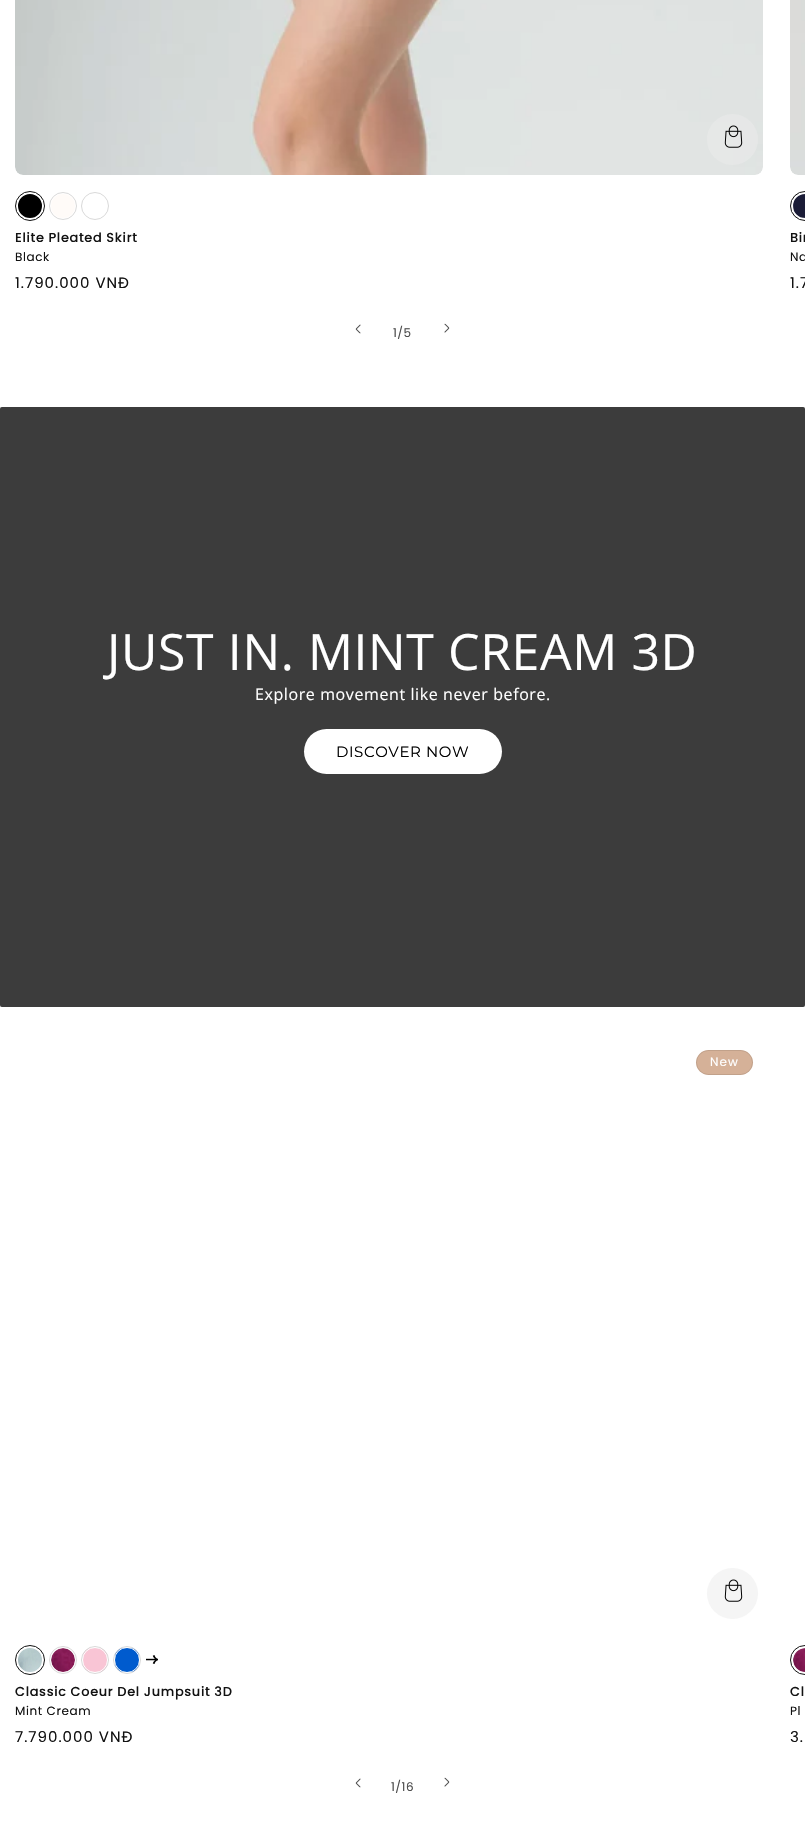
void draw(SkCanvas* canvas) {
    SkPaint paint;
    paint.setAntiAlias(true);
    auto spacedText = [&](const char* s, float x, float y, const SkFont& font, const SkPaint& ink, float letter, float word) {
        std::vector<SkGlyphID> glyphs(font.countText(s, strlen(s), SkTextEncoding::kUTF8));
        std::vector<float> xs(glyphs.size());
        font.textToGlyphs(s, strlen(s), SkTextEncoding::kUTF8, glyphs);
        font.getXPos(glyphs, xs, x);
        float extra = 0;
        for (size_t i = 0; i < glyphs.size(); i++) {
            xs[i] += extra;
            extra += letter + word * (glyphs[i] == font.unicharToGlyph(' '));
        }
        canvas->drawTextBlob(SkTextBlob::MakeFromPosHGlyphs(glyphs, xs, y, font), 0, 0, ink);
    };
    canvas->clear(0xFFFFFFFF);
    canvas->drawImageRect(SkImages::DeferredFromEncodedData(SkData::MakeFromFileName("img1.png")), SkRect::MakeXYWH(15, 0, 748, 175), SkSamplingOptions());
    paint.setColor(0x80EBEBEB);
    canvas->drawCircle(732.5f, 139.5f, 25.5f, paint);
    canvas->drawImageRect(SkImages::DeferredFromEncodedData(SkData::MakeFromFileName("img2.png")), SkRect::MakeXYWH(724, 125, 19, 23), SkSamplingOptions());
    canvas->drawImageRect(SkImages::DeferredFromEncodedData(SkData::MakeFromFileName("img3.png")), SkRect::MakeXYWH(18, 194, 24, 24), SkSamplingOptions());
    paint.setStyle(SkPaint::kStroke_Style);
    paint.setStrokeWidth(2);
    paint.setColor(0xFFFFFFFF);
    canvas->drawCircle(30, 206, 13, paint);
    paint.setStrokeWidth(1);
    paint.setColor(0xFF111111);
    canvas->drawCircle(30, 206, 14.5f, paint);
    canvas->drawImageRect(SkImages::DeferredFromEncodedData(SkData::MakeFromFileName("img4.png")), SkRect::MakeXYWH(51, 194, 24, 24), SkSamplingOptions());
    paint.setColor(0xFFFFFFFF);
    canvas->drawCircle(63, 206, 12.5f, paint);
    paint.setColor(0xFFD9D9D9);
    canvas->drawCircle(63, 206, 13.5f, paint);
    canvas->drawCircle(95, 206, 13.5f, paint);
    SkFont font1(fontMgr->matchFamilyStyle("Poppins", SkFontStyle(500, SkFontStyle::kNormal_Width, SkFontStyle::kUpright_Slant)), 13);
    font1.setSubpixel(true);
    paint.setStyle(SkPaint::kFill_Style);
    paint.setColor(0xFF121212);
    spacedText("Elite Pleated Skirt", 15, 242, font1, paint, 0.6f, 0);
    SkFont font2(fontMgr->matchFamilyStyle("Poppins", SkFontStyle::Normal()), 12);
    font2.setSubpixel(true);
    spacedText("Black", 15, 261, font2, paint, 0.6f, 0);
    SkFont font3(fontMgr->matchFamilyStyle("Poppins", SkFontStyle::Normal()), 15);
    font3.setSubpixel(true);
    spacedText("1.790.000 VNĐ", 15, 288, font3, paint, 1, 0);
    canvas->drawImageRect(SkImages::DeferredFromEncodedData(SkData::MakeFromFileName("img5.png")), SkRect::MakeXYWH(790, 0, 15, 175), SkSamplingOptions());
    canvas->drawImageRect(SkImages::DeferredFromEncodedData(SkData::MakeFromFileName("img6.png")), SkRect::MakeXYWH(793, 194, 12, 24), SkSamplingOptions());
    paint.setStyle(SkPaint::kStroke_Style);
    paint.setStrokeWidth(2);
    paint.setColor(0xFFFFFFFF);
    canvas->drawCircle(805, 206, 13, paint);
    paint.setStrokeWidth(1);
    paint.setColor(0xFF111111);
    canvas->drawCircle(805, 206, 14.5f, paint);
    paint.setStyle(SkPaint::kFill_Style);
    paint.setColor(0xFF121212);
    spacedText("Bir", 790, 242, font1, paint, 0.6f, 0);
    spacedText("Na", 790, 261, font2, paint, 0.6f, 0);
    spacedText("1.7", 790, 288, font3, paint, 1, 0);
    canvas->drawImageRect(SkImages::DeferredFromEncodedData(SkData::MakeFromFileName("img7.png")), SkRect::MakeXYWH(355, 324, 6, 10), SkSamplingOptions());
    paint.setColor(0xFF4D4D4D);
    spacedText("1/5", 393, 337, font2, paint, 0.5f, 0);
    canvas->drawImageRect(SkImages::DeferredFromEncodedData(SkData::MakeFromFileName("img8.png")), SkRect::MakeXYWH(444, 323, 6, 10), SkSamplingOptions());
    paint.setColor(0xFF535353);
    canvas->drawRoundRect(SkRect::MakeXYWH(0, 407, 805, 600), 2, 2, paint);
    paint.setColor(0x47000000);
    canvas->drawRoundRect(SkRect::MakeXYWH(0, 407, 805, 600), 2, 2, paint);
    SkFont font4(fontMgr->matchFamilyStyle("Open Sans", SkFontStyle::Normal()), 50);
    font4.setSubpixel(true);
    paint.setColor(0xFFFFFFFF);
    spacedText("JUST IN. MINT CREAM 3D", 107, 670, font4, paint, 0.6f, 0);
    SkFont font5(fontMgr->matchFamilyStyle("Open Sans", SkFontStyle::Normal()), 16);
    font5.setSubpixel(true);
    spacedText("Explore movement like never before.", 255, 700, font5, paint, 0.6f, 0);
    canvas->drawRoundRect(SkRect::MakeXYWH(304, 729, 198, 45), 22.5f, 22.5f, paint);
    SkFont font6(fontMgr->matchFamilyStyle("Montserrat", SkFontStyle::Normal()), 15);
    font6.setSubpixel(true);
    paint.setColor(0xFF000000);
    spacedText("DISCOVER NOW", 336, 757, font6, paint, 0.6f, 0);
    paint.setColor(0xFFD5B198);
    canvas->drawRoundRect(SkRect::MakeXYWH(696, 1050, 57, 25), 12.5f, 12.5f, paint);
    paint.setStyle(SkPaint::kStroke_Style);
    paint.setColor(0x1A121212);
    canvas->drawRoundRect(SkRect::MakeXYWH(696.5f, 1050.5f, 56, 24), 12, 12, paint);
    paint.setStyle(SkPaint::kFill_Style);
    paint.setColor(0xFFFFFFFF);
    spacedText("New", 710, 1066, font2, paint, 1, 0);
    paint.setColor(0xFFF5F5F5);
    canvas->drawCircle(732.5f, 1593.5f, 25.5f, paint);
    canvas->drawImageRect(SkImages::DeferredFromEncodedData(SkData::MakeFromFileName("img9.png")), SkRect::MakeXYWH(724, 1579, 19, 23), SkSamplingOptions());
    canvas->drawImageRect(SkImages::DeferredFromEncodedData(SkData::MakeFromFileName("img10.png")), SkRect::MakeXYWH(18, 1648, 25, 24), SkSamplingOptions());
    paint.setStyle(SkPaint::kStroke_Style);
    paint.setStrokeWidth(2);
    paint.setColor(0xFFFFFFFF);
    canvas->drawCircle(30, 1660, 13, paint);
    paint.setStrokeWidth(1);
    paint.setColor(0xFF111111);
    canvas->drawCircle(30, 1660, 14.5f, paint);
    canvas->drawImageRect(SkImages::DeferredFromEncodedData(SkData::MakeFromFileName("img11.png")), SkRect::MakeXYWH(51, 1648, 24, 24), SkSamplingOptions());
    paint.setColor(0xFFFFFFFF);
    canvas->drawCircle(63, 1660, 12.5f, paint);
    paint.setColor(0xFFD9D9D9);
    canvas->drawCircle(63, 1660, 13.5f, paint);
    canvas->drawImageRect(SkImages::DeferredFromEncodedData(SkData::MakeFromFileName("img12.png")), SkRect::MakeXYWH(83, 1648, 24, 24), SkSamplingOptions());
    paint.setColor(0xFFFFFFFF);
    canvas->drawCircle(95, 1660, 12.5f, paint);
    paint.setColor(0x33434343);
    canvas->drawCircle(95, 1660, 13.5f, paint);
    canvas->drawImageRect(SkImages::DeferredFromEncodedData(SkData::MakeFromFileName("img13.png")), SkRect::MakeXYWH(115, 1648, 24, 24), SkSamplingOptions());
    paint.setColor(0xFFFFFFFF);
    canvas->drawCircle(127, 1660, 12.5f, paint);
    paint.setColor(0x33434343);
    canvas->drawCircle(127, 1660, 13.5f, paint);
    canvas->drawImageRect(SkImages::DeferredFromEncodedData(SkData::MakeFromFileName("img14.png")), SkRect::MakeXYWH(146, 1655, 12, 9), SkSamplingOptions());
    paint.setStyle(SkPaint::kFill_Style);
    paint.setColor(0xFF121212);
    spacedText("Classic Coeur Del Jumpsuit 3D", 15, 1696, font1, paint, 0.6f, 0);
    spacedText("Mint Cream", 15, 1715, font2, paint, 0.6f, 0);
    spacedText("7.790.000 VNĐ", 15, 1742, font3, paint, 1, 0);
    canvas->drawImageRect(SkImages::DeferredFromEncodedData(SkData::MakeFromFileName("img15.png")), SkRect::MakeXYWH(793, 1648, 12, 24), SkSamplingOptions());
    paint.setStyle(SkPaint::kStroke_Style);
    paint.setStrokeWidth(2);
    paint.setColor(0xFFFFFFFF);
    canvas->drawCircle(805, 1660, 13, paint);
    paint.setStrokeWidth(1);
    paint.setColor(0xFF111111);
    canvas->drawCircle(805, 1660, 14.5f, paint);
    paint.setStyle(SkPaint::kFill_Style);
    paint.setColor(0xFF121212);
    spacedText("Cl", 790, 1696, font1, paint, 0.6f, 0);
    spacedText("Pl", 790, 1715, font2, paint, 0.6f, 0);
    spacedText("3.", 790, 1742, font3, paint, 1, 0);
    canvas->drawImageRect(SkImages::DeferredFromEncodedData(SkData::MakeFromFileName("img16.png")), SkRect::MakeXYWH(355, 1778, 6, 10), SkSamplingOptions());
    paint.setColor(0xFF4D4D4D);
    spacedText("1/16", 391, 1791, font2, paint, 0.5f, 0);
    canvas->drawImageRect(SkImages::DeferredFromEncodedData(SkData::MakeFromFileName("img17.png")), SkRect::MakeXYWH(444, 1777, 6, 10), SkSamplingOptions());
}
